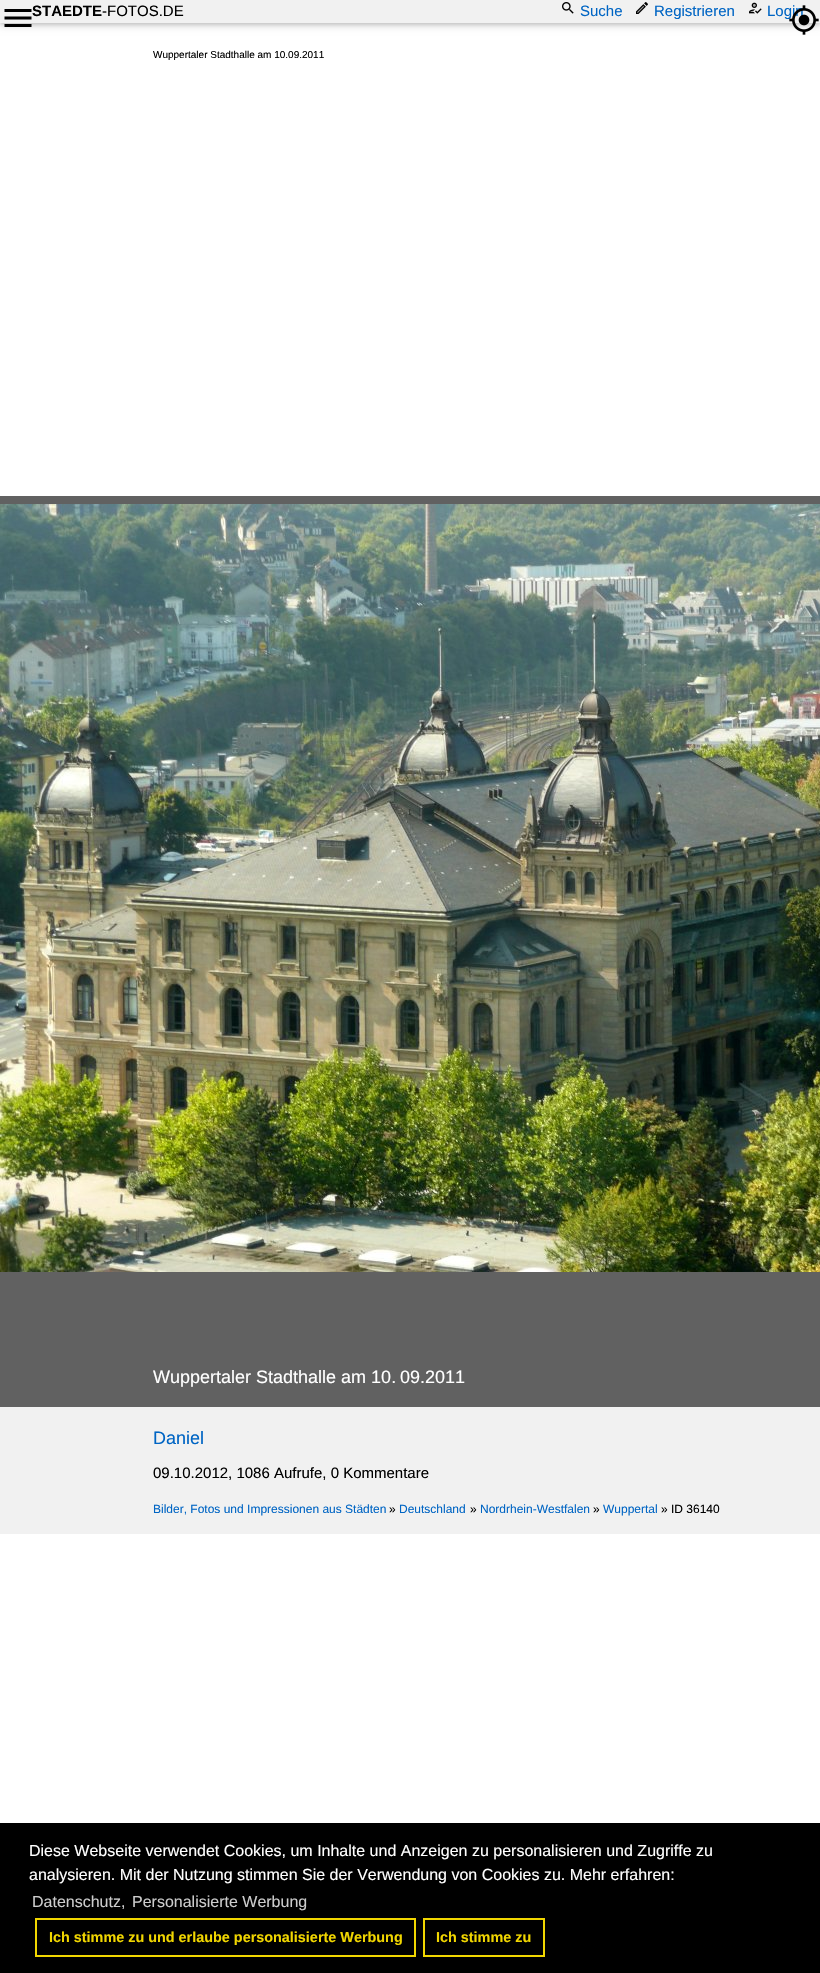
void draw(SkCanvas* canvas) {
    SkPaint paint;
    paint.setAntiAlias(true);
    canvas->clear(0xFFFFFFFF);
    paint.setColor(0x1F000000);
    paint.setMaskFilter(SkMaskFilter::MakeBlur(kNormal_SkBlurStyle, 5));
    canvas->drawRect(SkRect::MakeXYWH(0, 2, 820, 23), paint);
    paint.setMaskFilter(nullptr);
    paint.setColor(0x29000000);
    paint.setMaskFilter(SkMaskFilter::MakeBlur(kNormal_SkBlurStyle, 2));
    canvas->drawRect(SkRect::MakeXYWH(0, 2, 820, 23), paint);
    paint.setMaskFilter(nullptr);
    paint.setColor(0xFFF1F1F1);
    canvas->drawRect(SkRect::MakeXYWH(0, 0, 820, 23), paint);
    SkFont font1(fontMgr->matchFamilyStyle("Liberation Sans", SkFontStyle::Bold()), 15);
    font1.setSubpixel(true);
    paint.setColor(0xFF000000);
    canvas->drawString("STAEDTE", 32, 16, font1, paint);
    SkFont font2(fontMgr->matchFamilyStyle("Liberation Sans", SkFontStyle::Normal()), 15);
    font2.setSubpixel(true);
    canvas->drawString("-FOTOS.DE", 102, 16, font2, paint);
    canvas->drawImageRect(SkImages::DeferredFromEncodedData(SkData::MakeFromFileName("img1.png")), SkRect::MakeXYWH(562, 2, 12, 12), SkSamplingOptions());
    paint.setColor(0xFF0065C4);
    canvas->drawString("Suche", 580, 16, font2, paint);
    canvas->drawImageRect(SkImages::DeferredFromEncodedData(SkData::MakeFromFileName("img2.png")), SkRect::MakeXYWH(636, 2, 12, 12), SkSamplingOptions());
    canvas->drawString("Registrieren", 654, 16, font2, paint);
    canvas->drawImageRect(SkImages::DeferredFromEncodedData(SkData::MakeFromFileName("img3.png")), SkRect::MakeXYWH(749, 2, 13, 12), SkSamplingOptions());
    canvas->drawString("Login", 767, 16, font2, paint);
    canvas->drawImageRect(SkImages::DeferredFromEncodedData(SkData::MakeFromFileName("img4.png")), SkRect::MakeXYWH(4, 9, 28, 18), SkSamplingOptions());
    canvas->drawImageRect(SkImages::DeferredFromEncodedData(SkData::MakeFromFileName("img5.png")), SkRect::MakeXYWH(789, 5, 30, 30), SkSamplingOptions());
    SkFont font3(fontMgr->matchFamilyStyle("Liberation Sans", SkFontStyle::Normal()), 10);
    font3.setSubpixel(true);
    paint.setColor(0xFF000000);
    canvas->drawString("Wuppertaler Stadthalle am 10.09.2011", 153, 58, font3, paint);
    paint.setColor(0xFF616161);
    canvas->drawRect(SkRect::MakeXYWH(0, 496, 820, 911), paint);
    canvas->drawImageRect(SkImages::DeferredFromEncodedData(SkData::MakeFromFileName("img6.png")), SkRect::MakeXYWH(0, 504, 820, 768), SkSamplingOptions());
    SkFont font4(fontMgr->matchFamilyStyle("Liberation Sans", SkFontStyle::Normal()), 18);
    font4.setSubpixel(true);
    paint.setColor(0xFFFFFFFF);
    canvas->drawString("Wuppertaler Stadthalle am 10.", 153, 1383, font4, paint);
    canvas->drawString("09.2011", 400, 1383, font4, paint);
    paint.setColor(0xFFF1F1F1);
    canvas->drawRect(SkRect::MakeXYWH(0, 1407, 820, 127), paint);
    paint.setColor(0xFF0065C4);
    canvas->drawString("Daniel", 153, 1444, font4, paint);
    paint.setColor(0xFF000000);
    canvas->drawString("09.10.2012, 1086 Aufrufe, 0 Kommentare", 153, 1478, font2, paint);
    SkFont font5(fontMgr->matchFamilyStyle("Liberation Sans", SkFontStyle::Normal()), 12);
    font5.setSubpixel(true);
    paint.setColor(0xFF0065C4);
    canvas->drawString("Bilder, Fotos und Impressionen aus Städten", 153, 1513, font5, paint);
    paint.setColor(0xFF000000);
    canvas->drawString("»", 389, 1513, font5, paint);
    paint.setColor(0xFF0065C4);
    canvas->drawString("Deutschland", 399, 1513, font5, paint);
    paint.setColor(0xFF000000);
    canvas->drawString("»", 470, 1513, font5, paint);
    paint.setColor(0xFF0065C4);
    canvas->drawString("Nordrhein-Westfalen", 480, 1513, font5, paint);
    paint.setColor(0xFF000000);
    canvas->drawString("»", 593, 1513, font5, paint);
    paint.setColor(0xFF0065C4);
    canvas->drawString("Wuppertal", 603, 1513, font5, paint);
    paint.setColor(0xFF000000);
    canvas->drawString("» ID 36140", 661, 1513, font5, paint);
    canvas->drawRect(SkRect::MakeXYWH(0, 1823, 820, 150), paint);
    SkFont font6(fontMgr->matchFamilyStyle("Liberation Sans", SkFontStyle::Normal()), 16);
    font6.setSubpixel(true);
    paint.setColor(0xFFFFFFFF);
    canvas->drawString("Diese Webseite verwendet Cookies, um Inhalte und Anzeigen zu personalisieren und Zugriffe zu", 29, 1856, font6, paint);
    canvas->drawString("analysieren. Mit der Nutzung stimmen Sie der Verwendung von Cookies zu. Mehr erfahren:", 29, 1880, font6, paint);
    paint.setColor(0xFFCCCCCC);
    canvas->drawString("Datenschutz,", 32, 1907, font6, paint);
    canvas->drawString("Personalisierte Werbung", 132, 1907, font6, paint);
    paint.setStyle(SkPaint::kStroke_Style);
    paint.setStrokeWidth(2);
    paint.setColor(0xFFF1D600);
    canvas->drawRect(SkRect::MakeXYWH(36, 1919, 379, 37), paint);
    SkFont font7(fontMgr->matchFamilyStyle("Liberation Sans", SkFontStyle::Bold()), 14.4f);
    font7.setSubpixel(true);
    paint.setStyle(SkPaint::kFill_Style);
    canvas->drawString("Ich stimme zu und erlaube personalisierte Werbung", 49, 1942, font7, paint);
    paint.setStyle(SkPaint::kStroke_Style);
    canvas->drawRect(SkRect::MakeXYWH(424, 1919, 120, 37), paint);
    paint.setStyle(SkPaint::kFill_Style);
    canvas->drawString("Ich stimme zu", 436, 1942, font7, paint);
}
